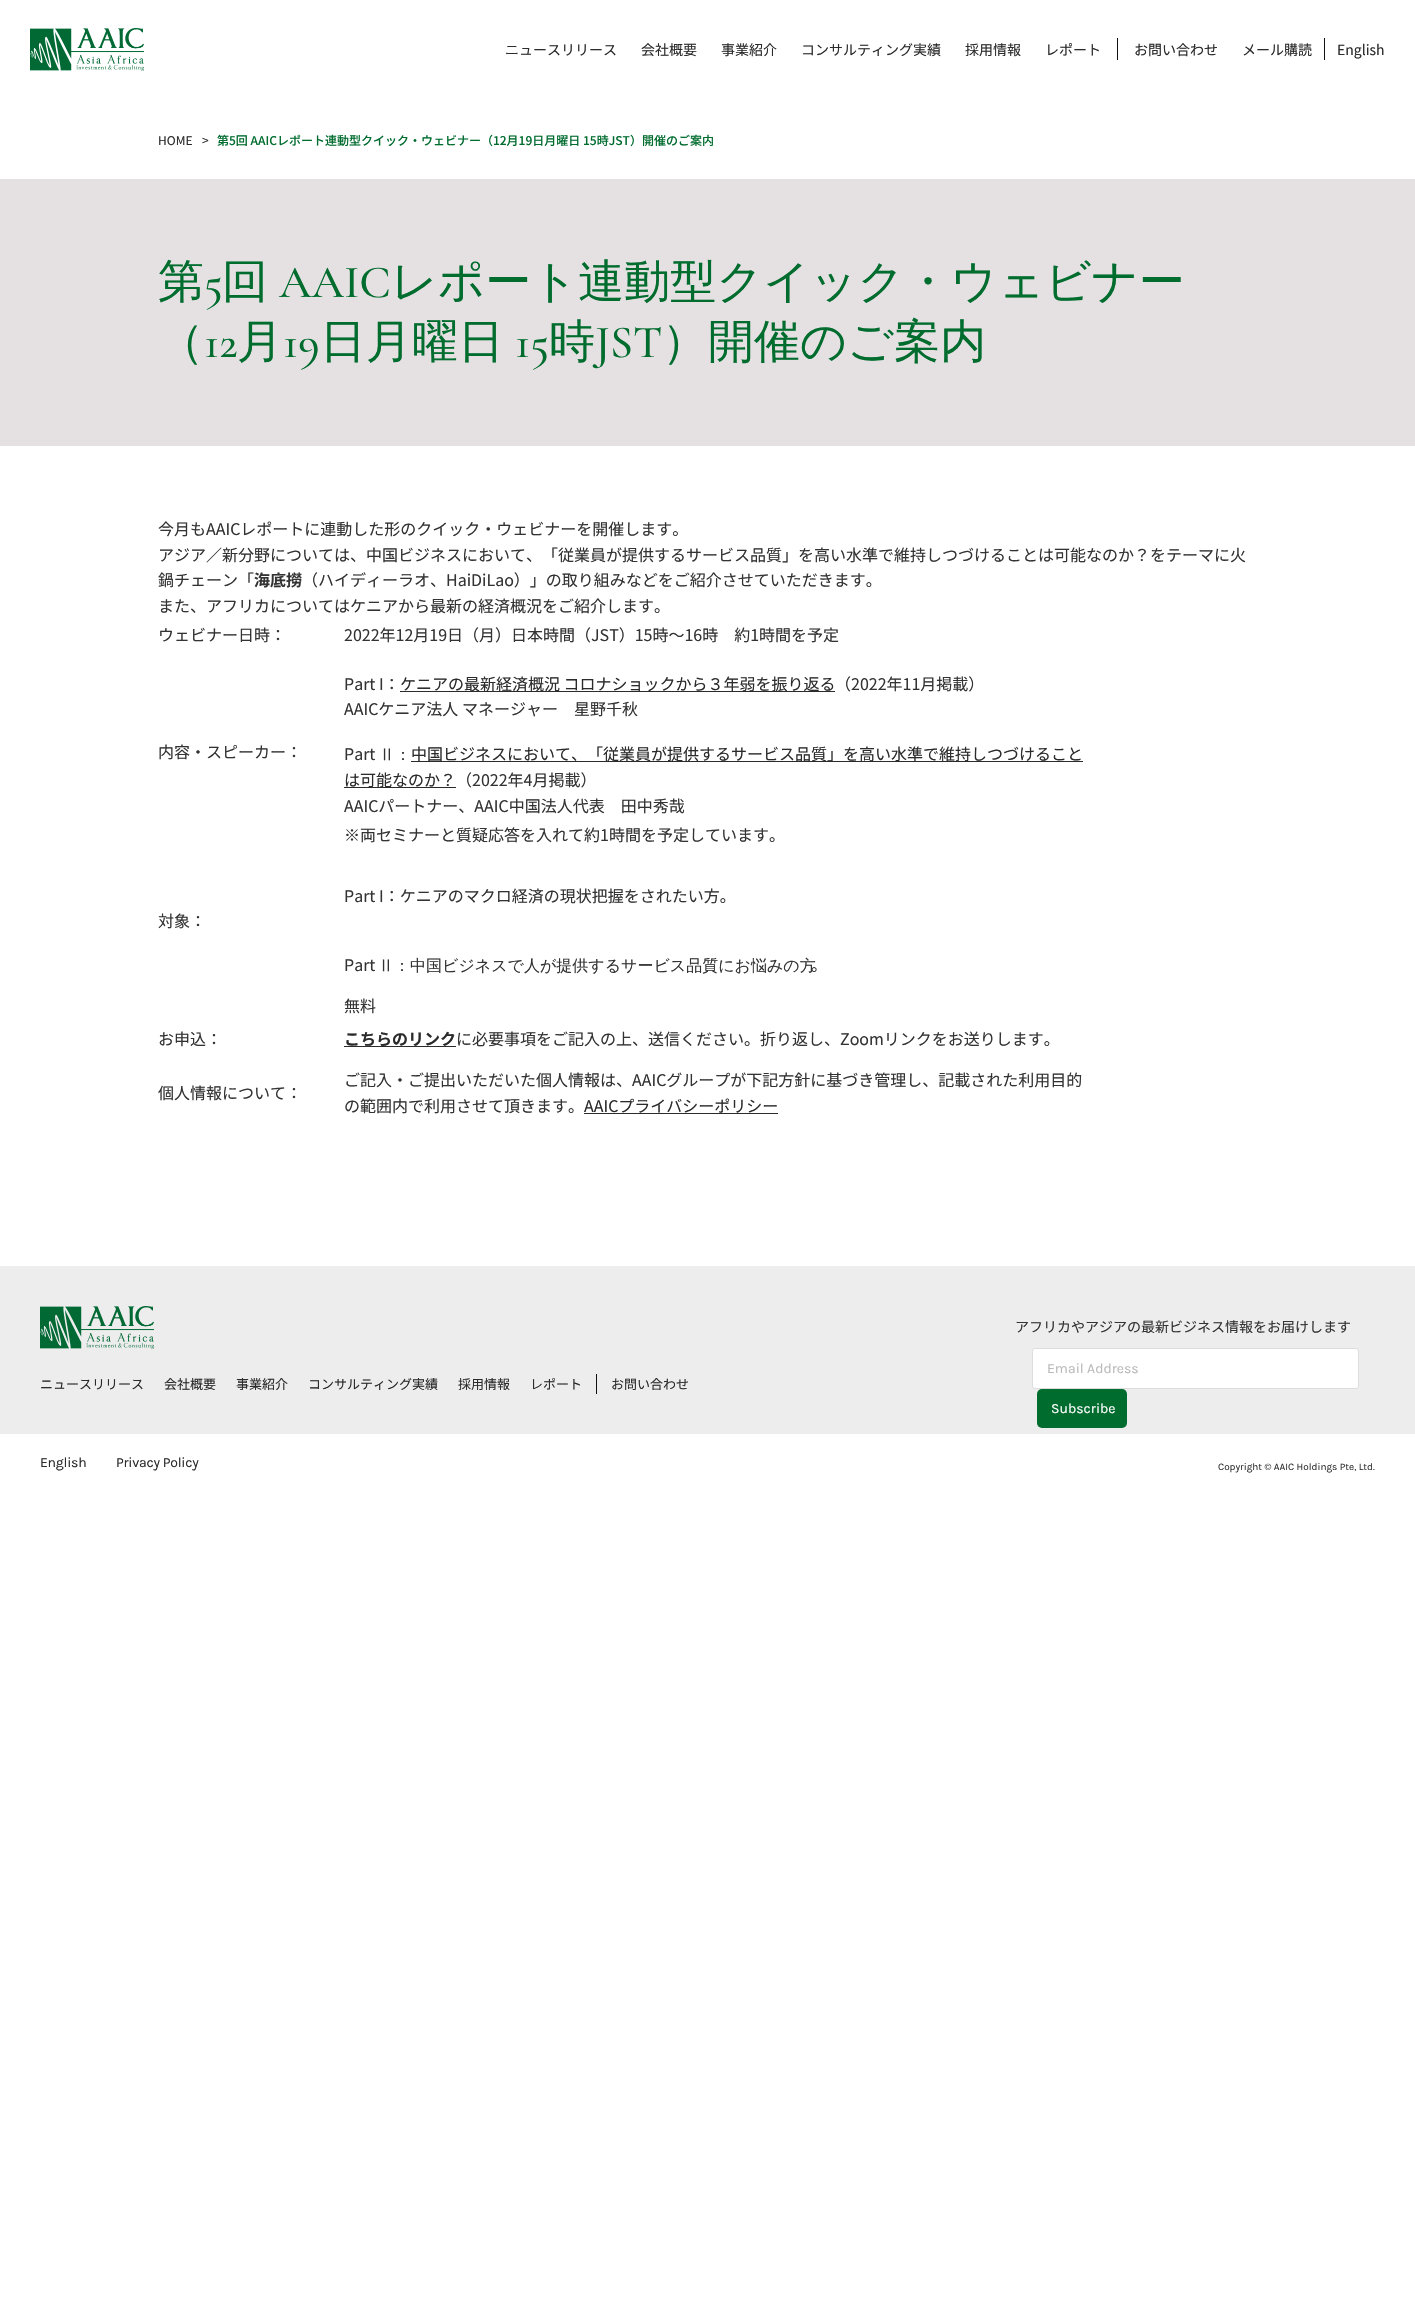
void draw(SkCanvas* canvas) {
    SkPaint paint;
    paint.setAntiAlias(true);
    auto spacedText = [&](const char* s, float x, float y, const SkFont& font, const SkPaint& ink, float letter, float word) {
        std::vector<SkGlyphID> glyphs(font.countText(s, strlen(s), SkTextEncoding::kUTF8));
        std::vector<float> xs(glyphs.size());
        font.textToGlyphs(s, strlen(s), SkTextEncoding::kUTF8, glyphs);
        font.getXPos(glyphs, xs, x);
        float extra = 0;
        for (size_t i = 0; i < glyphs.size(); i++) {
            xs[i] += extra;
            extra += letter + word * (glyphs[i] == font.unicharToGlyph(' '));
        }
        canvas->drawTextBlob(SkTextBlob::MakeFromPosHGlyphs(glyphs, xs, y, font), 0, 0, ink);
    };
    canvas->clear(0xFFFFFFFF);
    canvas->drawImageRect(SkImages::DeferredFromEncodedData(SkData::MakeFromFileName("img1.png")), SkRect::MakeXYWH(30, 28, 114, 43), SkSamplingOptions());
    SkFont font1(fontMgr->matchFamilyStyle("Noto Sans JP", SkFontStyle::Normal()), 14);
    font1.setSubpixel(true);
    paint.setColor(0xFF2B2B2B);
    canvas->drawString("ニュースリリース", 505, 55, font1, paint);
    canvas->drawString("会社概要", 641, 55, font1, paint);
    canvas->drawString("事業紹介", 721, 55, font1, paint);
    canvas->drawString("コンサルティング実績", 801, 55, font1, paint);
    canvas->drawString("採用情報", 965, 55, font1, paint);
    canvas->drawString("レポート", 1045, 55, font1, paint);
    paint.setColor(0xFF111111);
    canvas->drawRect(SkRect::MakeXYWH(1117, 38, 1, 22), paint);
    paint.setColor(0xFF2B2B2B);
    canvas->drawString("お問い合わせ", 1134, 55, font1, paint);
    canvas->drawString("メール購読", 1242, 55, font1, paint);
    paint.setColor(0xFF111111);
    canvas->drawRect(SkRect::MakeXYWH(1324, 38, 1, 22), paint);
    paint.setColor(0xFF2B2B2B);
    canvas->drawString("English", 1337, 55, font1, paint);
    SkFont font2(fontMgr->matchFamilyStyle("Noto Sans JP", SkFontStyle::Normal()), 12);
    font2.setSubpixel(true);
    canvas->drawString("HOME", 158, 145, font2, paint);
    paint.setColor(0xFF333333);
    canvas->drawString(">", 202, 145, font2, paint);
    SkFont font3(fontMgr->matchFamilyStyle("Noto Sans JP", SkFontStyle(500, SkFontStyle::kNormal_Width, SkFontStyle::kUpright_Slant)), 12);
    font3.setSubpixel(true);
    paint.setColor(0xFF006C2E);
    canvas->drawString("第5回 AAICレポート連動型クイック・ウェビナー（12月19日月曜日 15時JST）開催のご案内", 217, 145, font3, paint);
    paint.setColor(0xFFE5E1E2);
    canvas->drawRect(SkRect::MakeXYWH(0, 179, 1415, 267), paint);
    SkFont font4(fontMgr->matchFamilyStyle("WenQuanYi Zen Hei", SkFontStyle(500, SkFontStyle::kNormal_Width, SkFontStyle::kUpright_Slant)), 46);
    font4.setSubpixel(true);
    paint.setColor(0xFF006C2E);
    canvas->drawString("第", 158, 297, font4, paint);
    SkFont font5(fontMgr->matchFamilyStyle("Cormorant Garamond", SkFontStyle(300, SkFontStyle::kNormal_Width, SkFontStyle::kUpright_Slant)), 46);
    font5.setSubpixel(true);
    canvas->drawString("5", 204, 297, font5, paint);
    canvas->drawString("回", 222, 297, font4, paint);
    canvas->drawString("AAIC", 279, 297, font5, paint);
    canvas->drawString("レポート連動型クイック・ウェビナー", 391, 297, font4, paint);
    canvas->drawString("（", 158, 357, font4, paint);
    canvas->drawString("12", 204, 357, font5, paint);
    canvas->drawString("月", 237, 357, font4, paint);
    canvas->drawString("19", 283, 357, font5, paint);
    canvas->drawString("日月曜日", 320, 357, font4, paint);
    canvas->drawString("15", 515, 357, font5, paint);
    canvas->drawString("時", 549, 357, font4, paint);
    canvas->drawString("JST", 595, 357, font5, paint);
    canvas->drawString("）開催のご案内", 662, 357, font4, paint);
    SkFont font6(fontMgr->matchFamilyStyle("Noto Sans JP", SkFontStyle::Normal()), 16);
    font6.setSubpixel(true);
    paint.setColor(0xFF333333);
    canvas->drawString("今月もAAICレポートに連動した形のクイック・ウェビナーを開催します。", 158, 535, font6, paint);
    canvas->drawString("アジア／新分野については、中国ビジネスにおいて、「従業員が提供するサービス品質」を高い水準で維持しつづけることは可能なのか？をテーマに火", 158, 561, font6, paint);
    canvas->drawString("鍋チェーン「", 158, 586, font6, paint);
    SkFont font7(fontMgr->matchFamilyStyle("Noto Sans JP", SkFontStyle::Bold()), 16);
    font7.setSubpixel(true);
    canvas->drawString("海底撈", 254, 586, font7, paint);
    canvas->drawString("（ハイディーラオ、HaiDiLao）」の取り組みなどをご紹介させていただきます。", 302, 586, font6, paint);
    canvas->drawString("また、アフリカについてはケニアから最新の経済概況をご紹介します。", 158, 612, font6, paint);
    canvas->drawString("ウェビナー日時：", 158, 641, font6, paint);
    canvas->drawString("2022年12月19日（月）日本時間（JST）15時〜16時　約1時間を予定", 344, 641, font6, paint);
    canvas->drawString("Part I：", 344, 690, font6, paint);
    paint.setColor(0xFF2B2B2B);
    canvas->drawRect(SkRect::MakeXYWH(400, 691, 435, 1), paint);
    canvas->drawString("ケニアの最新経済概況 コロナショックから３年弱を振り返る", 400, 690, font6, paint);
    paint.setColor(0xFF333333);
    canvas->drawString("（2022年11月掲載）", 835, 690, font6, paint);
    canvas->drawString("AAICケニア法人 マネージャー　星野千秋", 344, 715, font6, paint);
    canvas->drawString("内容・スピーカー：", 158, 758, font6, paint);
    canvas->drawString("Part", 344, 760, font6, paint);
    SkFont font8(fontMgr->matchFamilyStyle("WenQuanYi Zen Hei", SkFontStyle(500, SkFontStyle::kNormal_Width, SkFontStyle::kUpright_Slant)), 16);
    font8.setSubpixel(true);
    canvas->drawString("Ⅱ：", 379, 760, font8, paint);
    paint.setColor(0xFF2B2B2B);
    canvas->drawRect(SkRect::MakeXYWH(411, 761, 672, 1), paint);
    canvas->drawString("中国ビジネスにおいて、「従業員が提供するサービス品質」を高い水準で維持しつづけること", 411, 760, font6, paint);
    canvas->drawRect(SkRect::MakeXYWH(344, 787, 112, 1), paint);
    canvas->drawString("は可能なのか？", 344, 786, font6, paint);
    paint.setColor(0xFF333333);
    canvas->drawString("（2022年4月掲載）", 456, 786, font6, paint);
    canvas->drawString("AAICパートナー、AAIC中国法人代表　田中秀哉", 344, 812, font6, paint);
    canvas->drawString("※両セミナーと質疑応答を入れて約1時間を予定しています。", 344, 841, font6, paint);
    canvas->drawString("Part I：ケニアのマクロ経済の現状把握をされたい方。", 344, 902, font6, paint);
    canvas->drawString("対象：", 158, 927, font6, paint);
    canvas->drawString("Part", 344, 971, font6, paint);
    canvas->drawString("Ⅱ：中国ビジネスで人が提供するサービス品質にお悩みの方", 378, 971, font8, paint);
    canvas->drawString("。", 811, 971, font6, paint);
    canvas->drawString("無料", 344, 1012, font6, paint);
    canvas->drawString("お申込：", 158, 1045, font6, paint);
    paint.setColor(0xFF2B2B2B);
    canvas->drawRect(SkRect::MakeXYWH(344, 1046, 112, 1), paint);
    canvas->drawString("こちらのリンク", 344, 1045, font7, paint);
    paint.setColor(0xFF333333);
    canvas->drawString("に必要事項をご記入の上、送信ください。折り返し、Zoomリンクをお送りします。", 456, 1045, font6, paint);
    canvas->drawString("個人情報について：", 158, 1099, font6, paint);
    canvas->drawString("ご記入・ご提出いただいた個人情報は、AAICグループが下記方針に基づき管理し、記載された利用目的", 344, 1086, font6, paint);
    canvas->drawString("の範囲内で利用させて頂きます。", 344, 1112, font6, paint);
    paint.setColor(0xFF2B2B2B);
    canvas->drawString("AAICプライバシーポリシー", 584, 1112, font6, paint);
    canvas->drawRect(SkRect::MakeXYWH(584, 1113, 194, 1), paint);
    paint.setColor(0xFFEDEDED);
    canvas->drawRect(SkRect::MakeXYWH(0, 1266, 1415, 168), paint);
    canvas->drawImageRect(SkImages::DeferredFromEncodedData(SkData::MakeFromFileName("img2.png")), SkRect::MakeXYWH(40, 1306, 114, 43), SkSamplingOptions());
    paint.setColor(0xFF333333);
    canvas->drawString("アフリカやアジアの最新ビジネス情報をお届けします", 1015, 1332, font1, paint);
    paint.setColor(0xFFFFFFFF);
    canvas->drawRoundRect(SkRect::MakeXYWH(1032.5f, 1348.5f, 326, 40), 2.5f, 2.5f, paint);
    paint.setStyle(SkPaint::kStroke_Style);
    paint.setStrokeWidth(1);
    paint.setColor(0xFFDDDDDD);
    canvas->drawRoundRect(SkRect::MakeXYWH(1032.5f, 1348.5f, 326, 40), 2.5f, 2.5f, paint);
    SkFont font9(fontMgr->matchFamilyStyle("Karla", SkFontStyle::Normal()), 14);
    font9.setSubpixel(true);
    paint.setStyle(SkPaint::kFill_Style);
    paint.setColor(0xFFB9B9B9);
    canvas->drawString("Email Address", 1047, 1373, font9, paint);
    paint.setColor(0xFF006C2E);
    canvas->drawRoundRect(SkRect::MakeXYWH(1037, 1389, 90, 39), 5, 5, paint);
    paint.setColor(0xFFFFFFFF);
    canvas->drawString("Subscribe", 1051, 1413, font9, paint);
    SkFont font10(fontMgr->matchFamilyStyle("Noto Sans JP", SkFontStyle::Normal()), 13);
    font10.setSubpixel(true);
    paint.setColor(0xFF2B2B2B);
    canvas->drawString("ニュースリリース", 40, 1389, font10, paint);
    canvas->drawString("会社概要", 164, 1389, font10, paint);
    canvas->drawString("事業紹介", 236, 1389, font10, paint);
    canvas->drawString("コンサルティング実績", 308, 1389, font10, paint);
    canvas->drawString("採用情報", 458, 1389, font10, paint);
    canvas->drawString("レポート", 530, 1389, font10, paint);
    paint.setColor(0xFF111111);
    canvas->drawRect(SkRect::MakeXYWH(596, 1374, 1, 20), paint);
    paint.setColor(0xFF2B2B2B);
    canvas->drawString("お問い合わせ", 611, 1389, font10, paint);
    spacedText("English", 40, 1467, font9, paint, -0.25f, 0);
    spacedText("Privacy Policy", 116, 1467, font9, paint, -0.25f, 0);
    SkFont font11(fontMgr->matchFamilyStyle("Karla", SkFontStyle::Normal()), 10);
    font11.setSubpixel(true);
    paint.setColor(0xFF333333);
    canvas->drawString("Copyright © AAIC Holdings Pte, Ltd.", 1218, 1470, font11, paint);
}
